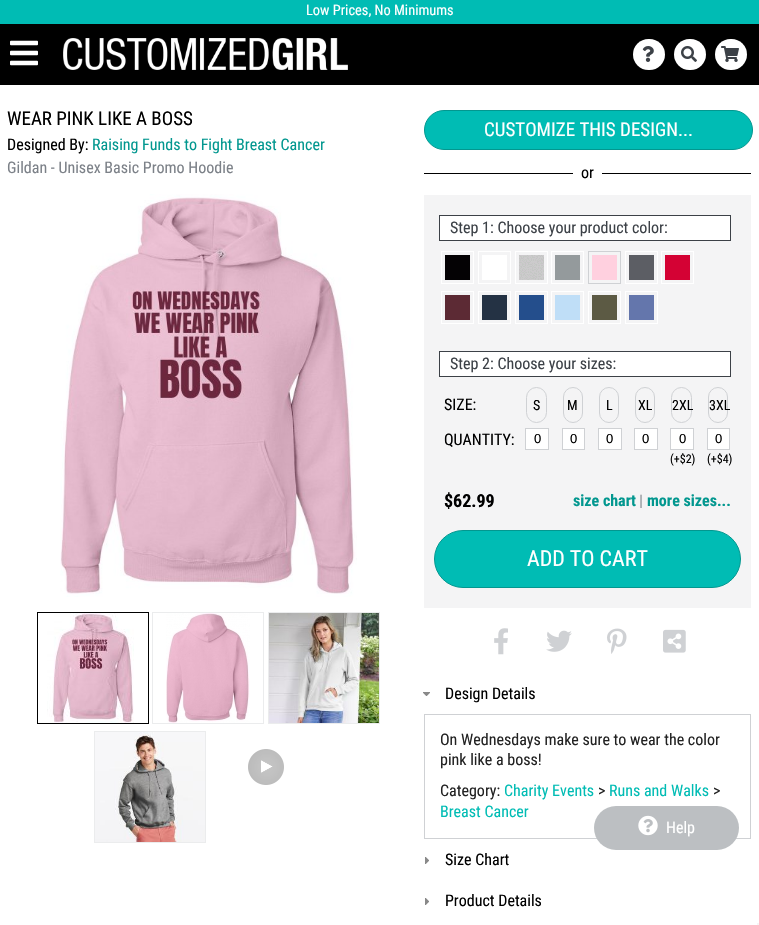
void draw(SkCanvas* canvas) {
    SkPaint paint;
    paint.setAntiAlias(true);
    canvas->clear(0xFFFFFFFF);
    paint.setColor(0xFF00BCB4);
    canvas->drawRect(SkRect::MakeXYWH(0, 0, 759, 24), paint);
    SkFont font1(fontMgr->matchFamilyStyle("Roboto Condensed", SkFontStyle::Normal()), 14.4f);
    font1.setSubpixel(true);
    paint.setColor(0xFFFFFFFF);
    canvas->drawString("Low Prices, No Minimums", 306, 15, font1, paint);
    paint.setColor(0xFF000000);
    canvas->drawRect(SkRect::MakeXYWH(0, 24, 759, 61), paint);
    canvas->drawImageRect(SkImages::DeferredFromEncodedData(SkData::MakeFromFileName("img1.png")), SkRect::MakeXYWH(10, 40, 28, 26), SkSamplingOptions());
    canvas->drawImageRect(SkImages::DeferredFromEncodedData(SkData::MakeFromFileName("img2.png")), SkRect::MakeXYWH(63, 38, 285, 32), SkSamplingOptions());
    paint.setColor(0xFFFFFFFF);
    canvas->drawRoundRect(SkRect::MakeXYWH(633, 39, 32, 31), 15.5f, 15.5f, paint);
    canvas->drawImageRect(SkImages::DeferredFromEncodedData(SkData::MakeFromFileName("img3.png")), SkRect::MakeXYWH(642, 46, 12, 16), SkSamplingOptions());
    canvas->drawRoundRect(SkRect::MakeXYWH(674, 39, 32, 31), 15.5f, 15.5f, paint);
    canvas->drawImageRect(SkImages::DeferredFromEncodedData(SkData::MakeFromFileName("img4.png")), SkRect::MakeXYWH(681, 46, 16, 16), SkSamplingOptions());
    canvas->drawRoundRect(SkRect::MakeXYWH(715, 39, 32, 31), 15.5f, 15.5f, paint);
    canvas->drawImageRect(SkImages::DeferredFromEncodedData(SkData::MakeFromFileName("img5.png")), SkRect::MakeXYWH(721, 46, 18, 16), SkSamplingOptions());
    SkFont font2(fontMgr->matchFamilyStyle("Roboto Condensed", SkFontStyle::Normal()), 19);
    font2.setSubpixel(true);
    paint.setColor(0xFF000000);
    canvas->drawString("WEAR PINK LIKE A BOSS", 7, 125, font2, paint);
    SkFont font3(fontMgr->matchFamilyStyle("Roboto Condensed", SkFontStyle::Normal()), 16);
    font3.setSubpixel(true);
    canvas->drawString("Designed By:", 7, 150, font3, paint);
    paint.setColor(0xFF02978F);
    canvas->drawString("Raising Funds to Fight Breast Cancer", 92, 150, font3, paint);
    paint.setColor(0xFF7C8188);
    canvas->drawString("Gildan - Unisex Basic Promo Hoodie", 7, 173, font3, paint);
    canvas->drawImageRect(SkImages::DeferredFromEncodedData(SkData::MakeFromFileName("img6.png")), SkRect::MakeXYWH(60, 194, 297, 403), SkSamplingOptions());
    paint.setStyle(SkPaint::kStroke_Style);
    paint.setStrokeWidth(1);
    paint.setColor(0xFF000000);
    canvas->drawRect(SkRect::MakeXYWH(37.5f, 612.5f, 111, 111), paint);
    canvas->drawImageRect(SkImages::DeferredFromEncodedData(SkData::MakeFromFileName("img7.png")), SkRect::MakeXYWH(47, 613, 87, 110), SkSamplingOptions());
    paint.setColor(0xFFEBECED);
    canvas->drawRect(SkRect::MakeXYWH(152.5f, 612.5f, 111, 111), paint);
    canvas->drawImageRect(SkImages::DeferredFromEncodedData(SkData::MakeFromFileName("img8.png")), SkRect::MakeXYWH(166, 613, 84, 110), SkSamplingOptions());
    canvas->drawRect(SkRect::MakeXYWH(268.5f, 612.5f, 111, 111), paint);
    canvas->drawImageRect(SkImages::DeferredFromEncodedData(SkData::MakeFromFileName("img9.png")), SkRect::MakeXYWH(269, 613, 110, 110), SkSamplingOptions());
    canvas->drawRect(SkRect::MakeXYWH(94.5f, 731.5f, 111, 111), paint);
    canvas->drawImageRect(SkImages::DeferredFromEncodedData(SkData::MakeFromFileName("img10.png")), SkRect::MakeXYWH(95, 732, 110, 110), SkSamplingOptions());
    canvas->drawImageRect(SkImages::DeferredFromEncodedData(SkData::MakeFromFileName("img11.png")), SkRect::MakeXYWH(248, 749, 36, 36), SkSamplingOptions());
    paint.setStyle(SkPaint::kFill_Style);
    paint.setColor(0xFF00BCB4);
    canvas->drawRoundRect(SkRect::MakeXYWH(424.5f, 110.5f, 328, 39), 19.5f, 19.5f, paint);
    paint.setStyle(SkPaint::kStroke_Style);
    paint.setColor(0xFF02978F);
    canvas->drawRoundRect(SkRect::MakeXYWH(424.5f, 110.5f, 328, 39), 19.5f, 19.5f, paint);
    paint.setStyle(SkPaint::kFill_Style);
    paint.setColor(0xFFFFFFFF);
    canvas->drawString("CUSTOMIZE THIS DESIGN...", 484, 136, font2, paint);
    paint.setColor(0xFF000000);
    canvas->drawRect(SkRect::MakeXYWH(424, 173, 327, 1), paint);
    paint.setColor(0xFFFFFFFF);
    canvas->drawRect(SkRect::MakeXYWH(573, 173, 29, 1), paint);
    paint.setColor(0xFF000000);
    canvas->drawString("or", 581, 178, font3, paint);
    paint.setColor(0xFFF4F4F5);
    canvas->drawRect(SkRect::MakeXYWH(424, 195, 327, 413), paint);
    paint.setColor(0xFFFFFFFF);
    canvas->drawRect(SkRect::MakeXYWH(439.5f, 215.5f, 291, 25), paint);
    paint.setStyle(SkPaint::kStroke_Style);
    paint.setColor(0xFF3C4147);
    canvas->drawRect(SkRect::MakeXYWH(439.5f, 215.5f, 291, 25), paint);
    paint.setStyle(SkPaint::kFill_Style);
    canvas->drawString("Step 1: Choose your product color:", 450, 233, font3, paint);
    paint.setStyle(SkPaint::kStroke_Style);
    paint.setColor(0xFFFFFFFF);
    canvas->drawRect(SkRect::MakeXYWH(441.5f, 251.5f, 32, 32), paint);
    canvas->drawRect(SkRect::MakeXYWH(478.5f, 251.5f, 32, 32), paint);
    canvas->drawRect(SkRect::MakeXYWH(515.5f, 251.5f, 32, 32), paint);
    canvas->drawRect(SkRect::MakeXYWH(551.5f, 251.5f, 32, 32), paint);
    paint.setColor(0xFFCFD1D4);
    canvas->drawRect(SkRect::MakeXYWH(588.5f, 251.5f, 32, 32), paint);
    paint.setColor(0xFFFFFFFF);
    canvas->drawRect(SkRect::MakeXYWH(625.5f, 251.5f, 32, 32), paint);
    canvas->drawRect(SkRect::MakeXYWH(661.5f, 251.5f, 32, 32), paint);
    paint.setStyle(SkPaint::kFill_Style);
    paint.setColor(0xFF040204);
    canvas->drawRect(SkRect::MakeXYWH(445, 255, 25, 25), paint);
    paint.setColor(0xFFFFFFFF);
    canvas->drawRect(SkRect::MakeXYWH(482, 255, 25, 25), paint);
    canvas->drawImageRect(SkImages::DeferredFromEncodedData(SkData::MakeFromFileName("img12.png")), SkRect::MakeXYWH(519, 255, 25, 25), SkSamplingOptions());
    paint.setColor(0xFF949A9C);
    canvas->drawRect(SkRect::MakeXYWH(555, 255, 25, 25), paint);
    paint.setColor(0xFFFFD0DF);
    canvas->drawRect(SkRect::MakeXYWH(592, 255, 25, 25), paint);
    paint.setColor(0xFF5C5E64);
    canvas->drawRect(SkRect::MakeXYWH(629, 255, 25, 25), paint);
    paint.setColor(0xFFD40234);
    canvas->drawRect(SkRect::MakeXYWH(665, 255, 25, 25), paint);
    paint.setStyle(SkPaint::kStroke_Style);
    paint.setColor(0xFFFFFFFF);
    canvas->drawRect(SkRect::MakeXYWH(441.5f, 291.5f, 32, 32), paint);
    canvas->drawRect(SkRect::MakeXYWH(478.5f, 291.5f, 32, 32), paint);
    canvas->drawRect(SkRect::MakeXYWH(515.5f, 291.5f, 32, 32), paint);
    canvas->drawRect(SkRect::MakeXYWH(551.5f, 291.5f, 32, 32), paint);
    canvas->drawRect(SkRect::MakeXYWH(588.5f, 291.5f, 32, 32), paint);
    canvas->drawRect(SkRect::MakeXYWH(625.5f, 291.5f, 32, 32), paint);
    paint.setStyle(SkPaint::kFill_Style);
    paint.setColor(0xFF5C2A34);
    canvas->drawRect(SkRect::MakeXYWH(445, 295, 25, 25), paint);
    paint.setColor(0xFF243244);
    canvas->drawRect(SkRect::MakeXYWH(482, 295, 25, 25), paint);
    paint.setColor(0xFF244E8C);
    canvas->drawRect(SkRect::MakeXYWH(519, 295, 25, 25), paint);
    paint.setColor(0xFFBFDEF7);
    canvas->drawRect(SkRect::MakeXYWH(555, 295, 25, 25), paint);
    paint.setColor(0xFF5C5A44);
    canvas->drawRect(SkRect::MakeXYWH(592, 295, 25, 25), paint);
    paint.setColor(0xFF6476AC);
    canvas->drawRect(SkRect::MakeXYWH(629, 295, 25, 25), paint);
    paint.setColor(0xFFFFFFFF);
    canvas->drawRect(SkRect::MakeXYWH(439.5f, 351.5f, 291, 25), paint);
    paint.setStyle(SkPaint::kStroke_Style);
    paint.setColor(0xFF3C4147);
    canvas->drawRect(SkRect::MakeXYWH(439.5f, 351.5f, 291, 25), paint);
    paint.setStyle(SkPaint::kFill_Style);
    canvas->drawString("Step 2: Choose your sizes:", 450, 369, font3, paint);
    paint.setColor(0xFF000000);
    canvas->drawString("SIZE:", 444, 410, font3, paint);
    canvas->drawString("QUANTITY:", 444, 445, font3, paint);
    paint.setStyle(SkPaint::kStroke_Style);
    paint.setColor(0xFFCFD1D4);
    canvas->drawRoundRect(SkRect::MakeXYWH(526.5f, 387.5f, 20, 35), 10, 10, paint);
    SkFont font4(fontMgr->matchFamilyStyle("Roboto Condensed", SkFontStyle::Normal()), 14);
    font4.setSubpixel(true);
    paint.setStyle(SkPaint::kFill_Style);
    paint.setColor(0xFF000000);
    canvas->drawString("S", 533, 410, font4, paint);
    paint.setColor(0xFFFFFFFF);
    canvas->drawRect(SkRect::MakeXYWH(525.5f, 428.5f, 23, 21), paint);
    paint.setStyle(SkPaint::kStroke_Style);
    paint.setColor(0xFFCFD1D4);
    canvas->drawRect(SkRect::MakeXYWH(525.5f, 428.5f, 23, 21), paint);
    SkFont font5(fontMgr->matchFamilyStyle("Liberation Sans", SkFontStyle::Normal()), 13);
    font5.setSubpixel(true);
    paint.setStyle(SkPaint::kFill_Style);
    paint.setColor(0xFF000000);
    canvas->drawString("0", 534, 443, font5, paint);
    paint.setStyle(SkPaint::kStroke_Style);
    paint.setColor(0xFFCFD1D4);
    canvas->drawRoundRect(SkRect::MakeXYWH(563.5f, 387.5f, 19, 35), 9.5f, 9.5f, paint);
    paint.setStyle(SkPaint::kFill_Style);
    paint.setColor(0xFF000000);
    canvas->drawString("M", 567, 410, font4, paint);
    paint.setColor(0xFFFFFFFF);
    canvas->drawRect(SkRect::MakeXYWH(562.5f, 428.5f, 22, 21), paint);
    paint.setStyle(SkPaint::kStroke_Style);
    paint.setColor(0xFFCFD1D4);
    canvas->drawRect(SkRect::MakeXYWH(562.5f, 428.5f, 22, 21), paint);
    paint.setStyle(SkPaint::kFill_Style);
    paint.setColor(0xFF000000);
    canvas->drawString("0", 570, 443, font5, paint);
    paint.setStyle(SkPaint::kStroke_Style);
    paint.setColor(0xFFCFD1D4);
    canvas->drawRoundRect(SkRect::MakeXYWH(599.5f, 387.5f, 19, 35), 9.5f, 9.5f, paint);
    paint.setStyle(SkPaint::kFill_Style);
    paint.setColor(0xFF000000);
    canvas->drawString("L", 606, 410, font4, paint);
    paint.setColor(0xFFFFFFFF);
    canvas->drawRect(SkRect::MakeXYWH(598.5f, 428.5f, 23, 21), paint);
    paint.setStyle(SkPaint::kStroke_Style);
    paint.setColor(0xFFCFD1D4);
    canvas->drawRect(SkRect::MakeXYWH(598.5f, 428.5f, 23, 21), paint);
    paint.setStyle(SkPaint::kFill_Style);
    paint.setColor(0xFF000000);
    canvas->drawString("0", 606, 443, font5, paint);
    paint.setStyle(SkPaint::kStroke_Style);
    paint.setColor(0xFFCFD1D4);
    canvas->drawRoundRect(SkRect::MakeXYWH(635.5f, 387.5f, 19, 35), 9.5f, 9.5f, paint);
    paint.setStyle(SkPaint::kFill_Style);
    paint.setColor(0xFF000000);
    canvas->drawString("XL", 638, 410, font4, paint);
    paint.setColor(0xFFFFFFFF);
    canvas->drawRect(SkRect::MakeXYWH(634.5f, 428.5f, 23, 21), paint);
    paint.setStyle(SkPaint::kStroke_Style);
    paint.setColor(0xFFCFD1D4);
    canvas->drawRect(SkRect::MakeXYWH(634.5f, 428.5f, 23, 21), paint);
    paint.setStyle(SkPaint::kFill_Style);
    paint.setColor(0xFF000000);
    canvas->drawString("0", 642, 443, font5, paint);
    paint.setStyle(SkPaint::kStroke_Style);
    paint.setColor(0xFFCFD1D4);
    canvas->drawRoundRect(SkRect::MakeXYWH(671.5f, 387.5f, 20, 35), 10, 10, paint);
    paint.setStyle(SkPaint::kFill_Style);
    paint.setColor(0xFF000000);
    canvas->drawString("2XL", 672, 410, font4, paint);
    paint.setColor(0xFFFFFFFF);
    canvas->drawRect(SkRect::MakeXYWH(670.5f, 428.5f, 23, 21), paint);
    paint.setStyle(SkPaint::kStroke_Style);
    paint.setColor(0xFFCFD1D4);
    canvas->drawRect(SkRect::MakeXYWH(670.5f, 428.5f, 23, 21), paint);
    paint.setStyle(SkPaint::kFill_Style);
    paint.setColor(0xFF000000);
    canvas->drawString("0", 679, 443, font5, paint);
    SkFont font6(fontMgr->matchFamilyStyle("Roboto Condensed", SkFontStyle::Normal()), 12);
    font6.setSubpixel(true);
    canvas->drawString("(+$2)", 670, 463, font6, paint);
    paint.setStyle(SkPaint::kStroke_Style);
    paint.setColor(0xFFCFD1D4);
    canvas->drawRoundRect(SkRect::MakeXYWH(708.5f, 387.5f, 19, 35), 9.5f, 9.5f, paint);
    paint.setStyle(SkPaint::kFill_Style);
    paint.setColor(0xFF000000);
    canvas->drawString("3XL", 709, 410, font4, paint);
    paint.setColor(0xFFFFFFFF);
    canvas->drawRect(SkRect::MakeXYWH(707.5f, 428.5f, 22, 21), paint);
    paint.setStyle(SkPaint::kStroke_Style);
    paint.setColor(0xFFCFD1D4);
    canvas->drawRect(SkRect::MakeXYWH(707.5f, 428.5f, 22, 21), paint);
    paint.setStyle(SkPaint::kFill_Style);
    paint.setColor(0xFF000000);
    canvas->drawString("0", 715, 443, font5, paint);
    canvas->drawString("(+$4)", 707, 463, font6, paint);
    SkFont font7(fontMgr->matchFamilyStyle("Roboto Condensed", SkFontStyle::Bold()), 18);
    font7.setSubpixel(true);
    canvas->drawString("$62.99", 444, 507, font7, paint);
    SkFont font8(fontMgr->matchFamilyStyle("Roboto Condensed", SkFontStyle::Bold()), 16);
    font8.setSubpixel(true);
    paint.setColor(0xFF02978F);
    canvas->drawString("size chart", 573, 506, font8, paint);
    paint.setColor(0xFF9CA0A5);
    canvas->drawString("|", 639, 506, font8, paint);
    paint.setColor(0xFF02978F);
    canvas->drawString("more sizes...", 647, 506, font8, paint);
    paint.setColor(0xFF00BCB4);
    canvas->drawRoundRect(SkRect::MakeXYWH(434.5f, 530.5f, 306, 57), 28.5f, 28.5f, paint);
    paint.setStyle(SkPaint::kStroke_Style);
    paint.setColor(0xFF02978F);
    canvas->drawRoundRect(SkRect::MakeXYWH(434.5f, 530.5f, 306, 57), 28.5f, 28.5f, paint);
    SkFont font9(fontMgr->matchFamilyStyle("Roboto Condensed", SkFontStyle::Normal()), 22);
    font9.setSubpixel(true);
    paint.setStyle(SkPaint::kFill_Style);
    paint.setColor(0xFFFFFFFF);
    canvas->drawString("ADD TO CART", 527, 566, font9, paint);
    canvas->drawImageRect(SkImages::DeferredFromEncodedData(SkData::MakeFromFileName("img13.png")), SkRect::MakeXYWH(494, 628, 14, 27), SkSamplingOptions());
    canvas->drawImageRect(SkImages::DeferredFromEncodedData(SkData::MakeFromFileName("img14.png")), SkRect::MakeXYWH(546, 630, 26, 22), SkSamplingOptions());
    canvas->drawImageRect(SkImages::DeferredFromEncodedData(SkData::MakeFromFileName("img15.png")), SkRect::MakeXYWH(607, 628, 20, 26), SkSamplingOptions());
    canvas->drawImageRect(SkImages::DeferredFromEncodedData(SkData::MakeFromFileName("img16.png")), SkRect::MakeXYWH(663, 629, 23, 24), SkSamplingOptions());
    canvas->drawImageRect(SkImages::DeferredFromEncodedData(SkData::MakeFromFileName("img17.png")), SkRect::MakeXYWH(423, 692, 7, 4), SkSamplingOptions());
    paint.setColor(0xFF000000);
    canvas->drawString("Design Details", 445, 699, font3, paint);
    paint.setStyle(SkPaint::kStroke_Style);
    paint.setColor(0xFFCFD1D4);
    canvas->drawRect(SkRect::MakeXYWH(424.5f, 714.5f, 326, 124), paint);
    paint.setStyle(SkPaint::kFill_Style);
    paint.setColor(0xFF222222);
    canvas->drawString("On Wednesdays make sure to wear the color", 440, 745, font3, paint);
    canvas->drawString("pink like a boss!", 440, 765, font3, paint);
    canvas->drawString("Category:", 440, 796, font3, paint);
    paint.setColor(0xFF00BCB4);
    canvas->drawString("Charity Events", 504, 796, font3, paint);
    paint.setColor(0xFF222222);
    canvas->drawString(">", 598, 796, font3, paint);
    paint.setColor(0xFF00BCB4);
    canvas->drawString("Runs and Walks", 609, 796, font3, paint);
    paint.setColor(0xFF222222);
    canvas->drawString(">", 713, 796, font3, paint);
    paint.setColor(0xFF00BCB4);
    canvas->drawString("Breast Cancer", 440, 817, font3, paint);
    canvas->drawImageRect(SkImages::DeferredFromEncodedData(SkData::MakeFromFileName("img18.png")), SkRect::MakeXYWH(425, 857, 4, 7), SkSamplingOptions());
    paint.setColor(0xFF000000);
    canvas->drawString("Size Chart", 445, 865, font3, paint);
    canvas->drawImageRect(SkImages::DeferredFromEncodedData(SkData::MakeFromFileName("img18.png")), SkRect::MakeXYWH(425, 898, 4, 7), SkSamplingOptions());
    canvas->drawString("Product Details", 445, 906, font3, paint);
    paint.setColor(0xFFBCBFC2);
    canvas->drawRoundRect(SkRect::MakeXYWH(594, 806, 145, 44), 22, 22, paint);
    canvas->drawImageRect(SkImages::DeferredFromEncodedData(SkData::MakeFromFileName("img19.png")), SkRect::MakeXYWH(638, 815, 20, 21), SkSamplingOptions());
    paint.setColor(0xFFFFFFFF);
    canvas->drawString("Help", 666, 833, font3, paint);
    paint.setColor(0xFFF5F5F5);
    canvas->drawRect(SkRect::MakeXYWH(757, 923, 2, 2), paint);
}
